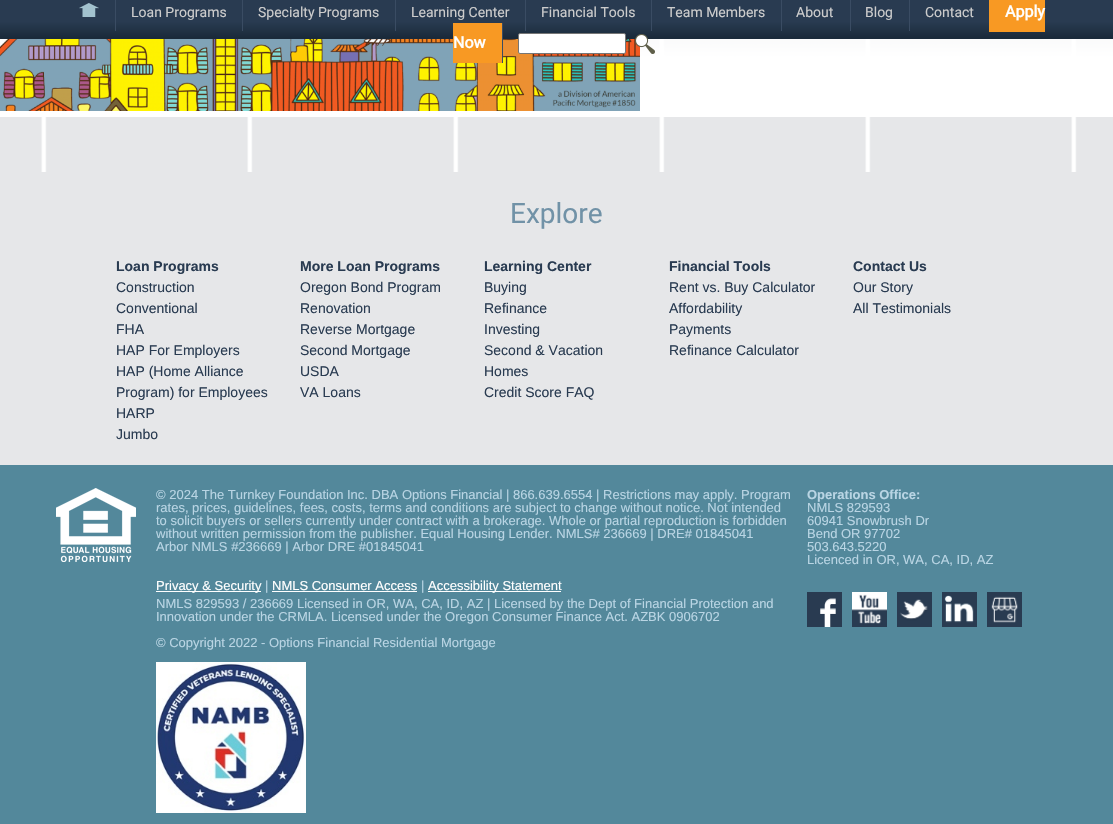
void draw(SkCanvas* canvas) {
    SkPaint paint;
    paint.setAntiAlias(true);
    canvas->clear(0xFFFFFFFF);
    canvas->drawImageRect(SkImages::DeferredFromEncodedData(SkData::MakeFromFileName("img1.png")), SkRect::MakeXYWH(0, 39, 1113, 133), SkSamplingOptions());
    {
        const SkColor colors[] = {0xFF293B51, 0xFF1A2A3A};
        const float stops[] = {0.55f, 0.97f};
        const SkPoint ends[] = {{557, 0}, {557, 39}};
        paint.setShader(SkGradientShader::MakeLinear(ends, colors, stops, 2, SkTileMode::kClamp));
        paint.setAlpha(255);
    }
    canvas->drawRect(SkRect::MakeXYWH(0, 0, 1113, 39), paint);
    canvas->drawImageRect(SkImages::DeferredFromEncodedData(SkData::MakeFromFileName("img2.png")), SkRect::MakeXYWH(79, 3, 20, 14), SkSamplingOptions());
    SkFont font1(fontMgr->matchFamilyStyle("Roboto", SkFontStyle::Normal()), 14);
    font1.setSubpixel(true);
    paint.setShader(nullptr);
    paint.setColor(0xFFCCCCCC);
    canvas->drawString("Loan Programs", 131, 17, font1, paint);
    paint.setColor(0xFF3A4C63);
    canvas->drawRect(SkRect::MakeXYWH(115, 0, 1, 31), paint);
    canvas->drawRect(SkRect::MakeXYWH(242, 0, 1, 31), paint);
    paint.setColor(0xFFCCCCCC);
    canvas->drawString("Specialty Programs", 258, 17, font1, paint);
    canvas->drawString("Learning Center", 411, 17, font1, paint);
    paint.setColor(0xFF3A4C63);
    canvas->drawRect(SkRect::MakeXYWH(395, 0, 1, 31), paint);
    canvas->drawRect(SkRect::MakeXYWH(525, 0, 1, 31), paint);
    paint.setColor(0xFFCCCCCC);
    canvas->drawString("Financial Tools", 541, 17, font1, paint);
    canvas->drawString("Team Members", 667, 17, font1, paint);
    paint.setColor(0xFF3A4C63);
    canvas->drawRect(SkRect::MakeXYWH(651, 0, 1, 31), paint);
    paint.setColor(0xFFCCCCCC);
    canvas->drawString("About", 796, 17, font1, paint);
    paint.setColor(0xFF3A4C63);
    canvas->drawRect(SkRect::MakeXYWH(781, 0, 1, 31), paint);
    paint.setColor(0xFFCCCCCC);
    canvas->drawString("Blog", 865, 17, font1, paint);
    paint.setColor(0xFF3A4C63);
    canvas->drawRect(SkRect::MakeXYWH(850, 0, 1, 31), paint);
    canvas->drawRect(SkRect::MakeXYWH(909, 0, 1, 31), paint);
    paint.setColor(0xFFCCCCCC);
    canvas->drawString("Contact", 925, 17, font1, paint);
    paint.setColor(0xFFF89923);
    canvas->drawRect(SkRect::MakeXYWH(989, 0, 56, 32), paint);
    SkFont font2(fontMgr->matchFamilyStyle("Roboto", SkFontStyle::Bold()), 16);
    font2.setSubpixel(true);
    paint.setColor(0xFFFFFFFF);
    canvas->drawString("Apply", 1005, 17, font2, paint);
    canvas->drawImageRect(SkImages::DeferredFromEncodedData(SkData::MakeFromFileName("img4.png")), SkRect::MakeXYWH(0, 39, 1113, 78), SkSamplingOptions());
    canvas->drawImageRect(SkImages::DeferredFromEncodedData(SkData::MakeFromFileName("img5.png")), SkRect::MakeXYWH(0, 39, 640, 72), SkSamplingOptions());
    paint.setColor(0xFFF89923);
    canvas->drawRect(SkRect::MakeXYWH(453, 23, 49, 40), paint);
    paint.setColor(0xFFFFFFFF);
    canvas->drawString("Now", 453, 48, font2, paint);
    paint.setColor(0xFF3A4C63);
    canvas->drawRect(SkRect::MakeXYWH(502, 23, 1, 40), paint);
    paint.setColor(0xFFFFFFFF);
    canvas->drawRoundRect(SkRect::MakeXYWH(518.5f, 33.5f, 107, 20), 1.5f, 1.5f, paint);
    paint.setStyle(SkPaint::kStroke_Style);
    paint.setStrokeWidth(1);
    paint.setColor(0xFF767676);
    canvas->drawRoundRect(SkRect::MakeXYWH(518.5f, 33.5f, 107, 20), 1.5f, 1.5f, paint);
    canvas->drawImageRect(SkImages::DeferredFromEncodedData(SkData::MakeFromFileName("img3.png")), SkRect::MakeXYWH(635, 34, 20, 20), SkSamplingOptions());
    paint.setStyle(SkPaint::kFill_Style);
    paint.setColor(0xFFE6E7E9);
    canvas->drawRect(SkRect::MakeXYWH(0, 172, 1113, 293), paint);
    SkFont font3(fontMgr->matchFamilyStyle("Roboto", SkFontStyle::Normal()), 28);
    font3.setSubpixel(true);
    paint.setColor(0xFF7192A7);
    canvas->drawString("Explore", 510, 223, font3, paint);
    SkFont font4(fontMgr->matchFamilyStyle("Liberation Sans", SkFontStyle::Bold()), 14);
    font4.setSubpixel(true);
    paint.setColor(0xFF293B51);
    canvas->drawString("Loan Programs", 116, 271, font4, paint);
    SkFont font5(fontMgr->matchFamilyStyle("Liberation Sans", SkFontStyle::Normal()), 14);
    font5.setSubpixel(true);
    canvas->drawString("Construction", 116, 292, font5, paint);
    canvas->drawString("Conventional", 116, 313, font5, paint);
    canvas->drawString("FHA", 116, 334, font5, paint);
    canvas->drawString("HAP For Employers", 116, 355, font5, paint);
    canvas->drawString("HAP (Home Alliance", 116, 376, font5, paint);
    canvas->drawString("Program) for Employees", 116, 397, font5, paint);
    canvas->drawString("HARP", 116, 418, font5, paint);
    canvas->drawString("Jumbo", 116, 439, font5, paint);
    canvas->drawString("More Loan Programs", 300, 271, font4, paint);
    canvas->drawString("Oregon Bond Program", 300, 292, font5, paint);
    canvas->drawString("Renovation", 300, 313, font5, paint);
    canvas->drawString("Reverse Mortgage", 300, 334, font5, paint);
    canvas->drawString("Second Mortgage", 300, 355, font5, paint);
    canvas->drawString("USDA", 300, 376, font5, paint);
    canvas->drawString("VA Loans", 300, 397, font5, paint);
    canvas->drawString("Learning Center", 484, 271, font4, paint);
    canvas->drawString("Buying", 484, 292, font5, paint);
    canvas->drawString("Refinance", 484, 313, font5, paint);
    canvas->drawString("Investing", 484, 334, font5, paint);
    canvas->drawString("Second & Vacation", 484, 355, font5, paint);
    canvas->drawString("Homes", 484, 376, font5, paint);
    canvas->drawString("Credit Score FAQ", 484, 397, font5, paint);
    canvas->drawString("Financial Tools", 669, 271, font4, paint);
    canvas->drawString("Rent vs. Buy Calculator", 669, 292, font5, paint);
    canvas->drawString("Affordability", 669, 313, font5, paint);
    canvas->drawString("Payments", 669, 334, font5, paint);
    canvas->drawString("Refinance Calculator", 669, 355, font5, paint);
    canvas->drawString("Contact Us", 853, 271, font4, paint);
    canvas->drawString("Our Story", 853, 292, font5, paint);
    canvas->drawString("All Testimonials", 853, 313, font5, paint);
    paint.setColor(0xFF53889B);
    canvas->drawRect(SkRect::MakeXYWH(0, 465, 1113, 359), paint);
    canvas->drawImageRect(SkImages::DeferredFromEncodedData(SkData::MakeFromFileName("img6.png")), SkRect::MakeXYWH(56, 488, 80, 74), SkSamplingOptions());
    SkFont font6(fontMgr->matchFamilyStyle("Liberation Sans", SkFontStyle::Normal()), 13);
    font6.setSubpixel(true);
    paint.setColor(0xFFB9D5E4);
    canvas->drawString("© 2024 The Turnkey Foundation Inc. DBA Options Financial | 866.639.6554 | Restrictions may apply. Program", 156, 499, font6, paint);
    canvas->drawString("rates, prices, guidelines, fees, costs, terms and conditions are subject to change without notice. Not intended", 156, 512, font6, paint);
    canvas->drawString("to solicit buyers or sellers currently under contract with a brokerage. Whole or partial reproduction is forbidden", 156, 525, font6, paint);
    canvas->drawString("without written permission from the publisher. Equal Housing Lender. NMLS# 236669 | DRE# 01845041", 156, 538, font6, paint);
    canvas->drawString("Arbor NMLS #236669 | Arbor DRE #01845041", 156, 551, font6, paint);
    paint.setColor(0xFFFFFFFF);
    canvas->drawRect(SkRect::MakeXYWH(156, 591, 105, 1), paint);
    canvas->drawString("Privacy & Security", 156, 590, font6, paint);
    paint.setColor(0xFFB9D5E4);
    canvas->drawString("|", 265, 590, font6, paint);
    paint.setColor(0xFFFFFFFF);
    canvas->drawString("NMLS Consumer Access", 272, 590, font6, paint);
    canvas->drawRect(SkRect::MakeXYWH(272, 591, 145, 1), paint);
    paint.setColor(0xFFB9D5E4);
    canvas->drawString("|", 421, 590, font6, paint);
    paint.setColor(0xFFFFFFFF);
    canvas->drawRect(SkRect::MakeXYWH(428, 591, 133, 1), paint);
    canvas->drawString("Accessibility Statement", 428, 590, font6, paint);
    paint.setColor(0xFFB9D5E4);
    canvas->drawString("NMLS 829593 / 236669 Licensed in OR, WA, CA, ID, AZ | Licensed by the Dept of Financial Protection and", 156, 608, font6, paint);
    canvas->drawString("Innovation under the CRMLA. Licensed under the Oregon Consumer Finance Act. AZBK 0906702", 156, 621, font6, paint);
    canvas->drawString("© Copyright 2022 - Options Financial Residential Mortgage", 156, 647, font6, paint);
    canvas->drawImageRect(SkImages::DeferredFromEncodedData(SkData::MakeFromFileName("img7.png")), SkRect::MakeXYWH(156, 662, 150, 151), SkSamplingOptions());
    SkFont font7(fontMgr->matchFamilyStyle("Liberation Sans", SkFontStyle::Bold()), 13);
    font7.setSubpixel(true);
    canvas->drawString("Operations Office:", 807, 499, font7, paint);
    canvas->drawString("NMLS 829593", 807, 512, font6, paint);
    canvas->drawString("60941 Snowbrush Dr", 807, 525, font6, paint);
    canvas->drawString("Bend OR 97702", 807, 538, font6, paint);
    canvas->drawString("503.643.5220", 807, 551, font6, paint);
    canvas->drawString("Licenced in OR, WA, CA, ID, AZ", 807, 564, font6, paint);
    canvas->drawImageRect(SkImages::DeferredFromEncodedData(SkData::MakeFromFileName("img8.png")), SkRect::MakeXYWH(807, 592, 35, 35), SkSamplingOptions());
    canvas->drawImageRect(SkImages::DeferredFromEncodedData(SkData::MakeFromFileName("img9.png")), SkRect::MakeXYWH(852, 592, 35, 35), SkSamplingOptions());
    canvas->drawImageRect(SkImages::DeferredFromEncodedData(SkData::MakeFromFileName("img10.png")), SkRect::MakeXYWH(897, 592, 35, 35), SkSamplingOptions());
    canvas->drawImageRect(SkImages::DeferredFromEncodedData(SkData::MakeFromFileName("img11.png")), SkRect::MakeXYWH(942, 592, 35, 35), SkSamplingOptions());
    canvas->drawImageRect(SkImages::DeferredFromEncodedData(SkData::MakeFromFileName("img12.png")), SkRect::MakeXYWH(987, 592, 35, 35), SkSamplingOptions());
}
